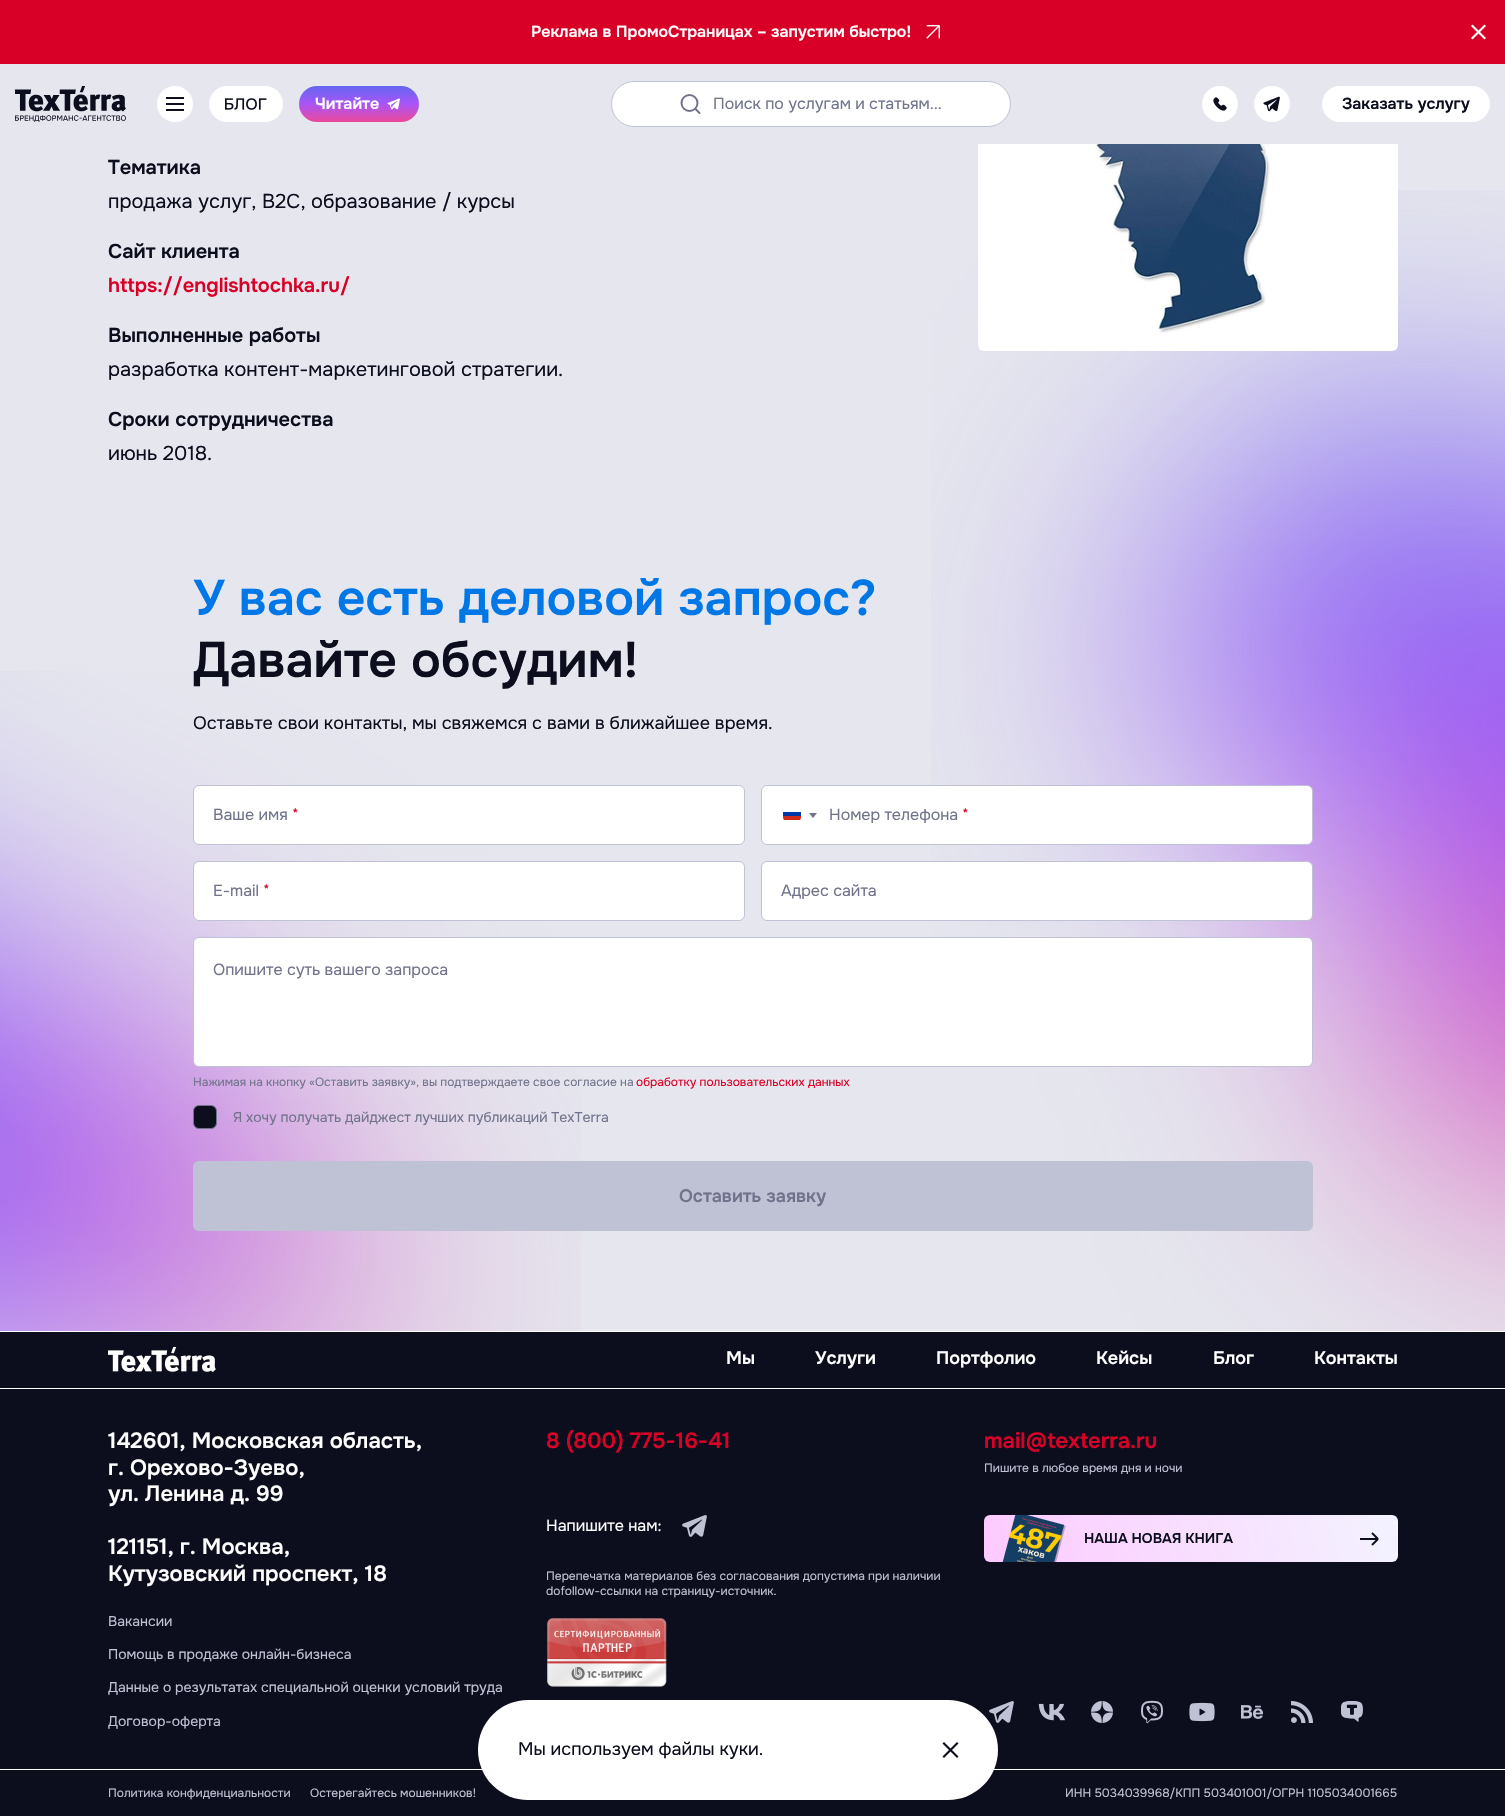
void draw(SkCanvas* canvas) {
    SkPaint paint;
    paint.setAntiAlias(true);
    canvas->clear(0xFFE5E6EE);
    canvas->drawImageRect(SkImages::DeferredFromEncodedData(SkData::MakeFromFileName("img9.png")), SkRect::MakeXYWH(931, 190, 574, 1141), SkSamplingOptions());
    paint.setColor(0xFFFFFFFF);
    canvas->drawRoundRect(SkRect::MakeXYWH(978, 71, 420, 280), 6, 6, paint);
    paint.setColor(0xFFE5E6EE);
    canvas->drawRect(SkRect::MakeXYWH(978, 71, 420, 73), paint);
    paint.setColor(0xFFD90027);
    canvas->drawRect(SkRect::MakeXYWH(0, 0, 1505, 64), paint);
    SkFont font1(fontMgr->matchFamilyStyle("Onest", SkFontStyle(600, SkFontStyle::kNormal_Width, SkFontStyle::kUpright_Slant)), 16);
    font1.setSubpixel(true);
    paint.setColor(0xFFFFFFFF);
    canvas->drawString("Реклама в ПромоСтраницах – запустим быстро!", 531, 37, font1, paint);
    canvas->drawImageRect(SkImages::DeferredFromEncodedData(SkData::MakeFromFileName("img1.png")), SkRect::MakeXYWH(926, 25, 14, 14), SkSamplingOptions());
    canvas->drawPath(SkPathBuilder().moveTo(1472.5f, 24.5f).lineTo(1486, 38).lineTo(1484.5f, 39.5f).lineTo(1471, 26).close().detach(), paint);
    canvas->drawPath(SkPathBuilder().moveTo(1471, 38).lineTo(1484.5f, 24.5f).lineTo(1486, 26).lineTo(1472.5f, 39.5f).close().detach(), paint);
    canvas->drawImageRect(SkImages::DeferredFromEncodedData(SkData::MakeFromFileName("img2.png")), SkRect::MakeXYWH(15, 86, 111, 36), SkSamplingOptions());
    canvas->drawCircle(175, 104, 18, paint);
    paint.setColor(0xFF0C0E1D);
    canvas->drawRect(SkRect::MakeXYWH(166, 97, 18, 2), paint);
    canvas->drawRect(SkRect::MakeXYWH(166, 103, 18, 2), paint);
    canvas->drawRect(SkRect::MakeXYWH(166, 109, 18, 2), paint);
    paint.setColor(0xFFFFFFFF);
    canvas->drawRoundRect(SkRect::MakeXYWH(209, 86, 74, 36), 18, 18, paint);
    canvas->drawImageRect(SkImages::DeferredFromEncodedData(SkData::MakeFromFileName("img3.png")), SkRect::MakeXYWH(225, 98, 42, 12), SkSamplingOptions());
    {
        const SkColor colors[] = {0xFF6366F1, 0xFFA855F7, 0xFFEC4899};
        const float stops[] = {0, 0.49f, 1};
        const SkPoint ends[] = {{359, 86}, {359, 122}};
        paint.setShader(SkGradientShader::MakeLinear(ends, colors, stops, 3, SkTileMode::kClamp));
        paint.setAlpha(255);
    }
    canvas->drawRoundRect(SkRect::MakeXYWH(299, 86, 120, 36), 18, 18, paint);
    paint.setShader(nullptr);
    paint.setColor(0xFFFFFFFF);
    canvas->drawString("Читайте", 315, 109, font1, paint);
    canvas->drawImageRect(SkImages::DeferredFromEncodedData(SkData::MakeFromFileName("img4.png")), SkRect::MakeXYWH(387, 98, 13, 12), SkSamplingOptions());
    canvas->drawRoundRect(SkRect::MakeXYWH(611.5f, 81.5f, 399, 45), 22.5f, 22.5f, paint);
    paint.setStyle(SkPaint::kStroke_Style);
    paint.setStrokeWidth(1);
    paint.setColor(0xFFBFC2D4);
    canvas->drawRoundRect(SkRect::MakeXYWH(611.5f, 81.5f, 399, 45), 22.5f, 22.5f, paint);
    paint.setStrokeWidth(2);
    paint.setColor(0xFF70738B);
    canvas->drawCircle(689.5f, 103, 8, paint);
    paint.setStrokeCap(SkPaint::kRound_Cap);
    paint.setStrokeJoin(SkPaint::kRound_Join);
    canvas->drawPath(SkPathBuilder().moveTo(695.5f, 109).lineTo(699.5f, 113).detach(), paint);
    SkFont font2(fontMgr->matchFamilyStyle("Onest", SkFontStyle::Normal()), 16);
    font2.setSubpixel(true);
    paint.setStyle(SkPaint::kFill_Style);
    canvas->drawString("Поиск по услугам и статьям...", 713, 109, font2, paint);
    paint.setColor(0xFFFFFFFF);
    canvas->drawCircle(1220, 104, 18, paint);
    canvas->drawImageRect(SkImages::DeferredFromEncodedData(SkData::MakeFromFileName("img5.png")), SkRect::MakeXYWH(1213, 97, 14, 14), SkSamplingOptions());
    canvas->drawCircle(1272, 104, 18, paint);
    canvas->drawImageRect(SkImages::DeferredFromEncodedData(SkData::MakeFromFileName("img6.png")), SkRect::MakeXYWH(1263, 96, 17, 16), SkSamplingOptions());
    canvas->drawRoundRect(SkRect::MakeXYWH(1322, 86, 168, 36), 18, 18, paint);
    paint.setColor(0xFF0C0E1D);
    canvas->drawString("Заказать услугу", 1342, 109, font1, paint);
    SkFont font3(fontMgr->matchFamilyStyle("Onest", SkFontStyle(600, SkFontStyle::kNormal_Width, SkFontStyle::kUpright_Slant)), 20);
    font3.setSubpixel(true);
    canvas->drawString("Тематика", 108, 174, font3, paint);
    SkFont font4(fontMgr->matchFamilyStyle("Onest", SkFontStyle::Normal()), 20);
    font4.setSubpixel(true);
    canvas->drawString("продажа услуг, B2C, образование / курсы", 108, 208, font4, paint);
    canvas->drawString("Сайт клиента", 108, 258, font3, paint);
    paint.setColor(0xFFD90027);
    canvas->drawString("https://englishtochka.ru/", 108, 292, font3, paint);
    paint.setColor(0xFF0C0E1D);
    canvas->drawString("Выполненные работы", 108, 342, font3, paint);
    canvas->drawString("разработка контент-маркетинговой стратегии.", 108, 376, font4, paint);
    canvas->drawString("Сроки сотрудничества", 108, 426, font3, paint);
    canvas->drawString("июнь 2018.", 108, 460, font4, paint);
    canvas->drawImageRect(SkImages::DeferredFromEncodedData(SkData::MakeFromFileName("img7.png")), SkRect::MakeXYWH(1095, 144, 175, 189), SkSamplingOptions());
    SkFont font5(fontMgr->matchFamilyStyle("Onest", SkFontStyle(600, SkFontStyle::kNormal_Width, SkFontStyle::kUpright_Slant)), 50);
    font5.setSubpixel(true);
    paint.setColor(0xFF0077E6);
    canvas->drawString("У вас есть деловой запрос?", 193, 615, font5, paint);
    canvas->drawImageRect(SkImages::DeferredFromEncodedData(SkData::MakeFromFileName("img10.png")), SkRect::MakeXYWH(0, 671, 581, 660), SkSamplingOptions());
    paint.setColor(0xFF0C0E1D);
    canvas->drawString("Давайте обсудим!", 193, 677, font5, paint);
    SkFont font6(fontMgr->matchFamilyStyle("Onest", SkFontStyle::Normal()), 18);
    font6.setSubpixel(true);
    canvas->drawString("Оставьте свои контакты, мы свяжемся с вами в ближайшее время.", 193, 729, font6, paint);
    paint.setColor(0xFFFFFFFF);
    canvas->drawRoundRect(SkRect::MakeXYWH(193.5f, 785.5f, 551, 59), 5.5f, 5.5f, paint);
    paint.setStyle(SkPaint::kStroke_Style);
    paint.setStrokeWidth(1);
    paint.setStrokeCap(SkPaint::kButt_Cap);
    paint.setStrokeJoin(SkPaint::kMiter_Join);
    paint.setColor(0xFFBFC2D4);
    canvas->drawRoundRect(SkRect::MakeXYWH(193.5f, 785.5f, 551, 59), 5.5f, 5.5f, paint);
    paint.setStyle(SkPaint::kFill_Style);
    paint.setColor(0xFF70738B);
    canvas->drawString("Ваше имя", 213, 820, font2, paint);
    paint.setColor(0xFFD90027);
    canvas->drawString("*", 292, 820, font2, paint);
    paint.setColor(0xFFFFFFFF);
    canvas->drawRoundRect(SkRect::MakeXYWH(761.5f, 785.5f, 551, 59), 5.5f, 5.5f, paint);
    paint.setStyle(SkPaint::kStroke_Style);
    paint.setColor(0xFFBFC2D4);
    canvas->drawRoundRect(SkRect::MakeXYWH(761.5f, 785.5f, 551, 59), 5.5f, 5.5f, paint);
    canvas->drawImageRect(SkImages::DeferredFromEncodedData(SkData::MakeFromFileName("img8.png")), SkRect::MakeXYWH(783, 812, 18, 8), SkSamplingOptions());
    paint.setStyle(SkPaint::kFill_Style);
    paint.setColor(0xFF70738B);
    canvas->drawPath(SkPathBuilder().moveTo(809, 813).lineTo(817, 813).lineTo(813, 818).close().detach(), paint);
    canvas->drawString("Номер телефона", 829, 820, font2, paint);
    paint.setColor(0xFFD90027);
    canvas->drawString("*", 962, 820, font2, paint);
    paint.setColor(0xFFFFFFFF);
    canvas->drawRoundRect(SkRect::MakeXYWH(193.5f, 861.5f, 551, 59), 5.5f, 5.5f, paint);
    paint.setStyle(SkPaint::kStroke_Style);
    paint.setColor(0xFFBFC2D4);
    canvas->drawRoundRect(SkRect::MakeXYWH(193.5f, 861.5f, 551, 59), 5.5f, 5.5f, paint);
    paint.setStyle(SkPaint::kFill_Style);
    paint.setColor(0xFF70738B);
    canvas->drawString("E-mail", 213, 896, font2, paint);
    paint.setColor(0xFFD90027);
    canvas->drawString("*", 263, 896, font2, paint);
    paint.setColor(0xFFFFFFFF);
    canvas->drawRoundRect(SkRect::MakeXYWH(761.5f, 861.5f, 551, 59), 5.5f, 5.5f, paint);
    paint.setStyle(SkPaint::kStroke_Style);
    paint.setColor(0xFFBFC2D4);
    canvas->drawRoundRect(SkRect::MakeXYWH(761.5f, 861.5f, 551, 59), 5.5f, 5.5f, paint);
    paint.setStyle(SkPaint::kFill_Style);
    paint.setColor(0xFF70738B);
    canvas->drawString("Адрес сайта", 781, 896, font2, paint);
    paint.setColor(0xFFFFFFFF);
    canvas->drawRoundRect(SkRect::MakeXYWH(193.5f, 937.5f, 1119, 129), 5.5f, 5.5f, paint);
    paint.setStyle(SkPaint::kStroke_Style);
    paint.setColor(0xFFBFC2D4);
    canvas->drawRoundRect(SkRect::MakeXYWH(193.5f, 937.5f, 1119, 129), 5.5f, 5.5f, paint);
    paint.setStyle(SkPaint::kFill_Style);
    paint.setColor(0xFF70738B);
    canvas->drawString("Опишите суть вашего запроса", 213, 975, font2, paint);
    SkFont font7(fontMgr->matchFamilyStyle("Onest", SkFontStyle::Normal()), 12);
    font7.setSubpixel(true);
    canvas->drawString("Нажимая на кнопку «Оставить заявку», вы подтверждаете свое согласие на", 193, 1086, font7, paint);
    paint.setColor(0xFFD90027);
    canvas->drawString("обработку пользовательских данных", 636, 1086, font7, paint);
    paint.setColor(0xFF0C0E1D);
    canvas->drawRoundRect(SkRect::MakeXYWH(193.5f, 1105.5f, 23, 23), 5.5f, 5.5f, paint);
    paint.setStyle(SkPaint::kStroke_Style);
    paint.setColor(0xFF70738B);
    canvas->drawRoundRect(SkRect::MakeXYWH(193.5f, 1105.5f, 23, 23), 5.5f, 5.5f, paint);
    SkFont font8(fontMgr->matchFamilyStyle("Onest", SkFontStyle::Normal()), 14);
    font8.setSubpixel(true);
    paint.setStyle(SkPaint::kFill_Style);
    canvas->drawString("Я хочу получать дайджест лучших публикаций TexTerra", 233, 1122, font8, paint);
    paint.setColor(0xFFBFC2D4);
    canvas->drawRoundRect(SkRect::MakeXYWH(193, 1161, 1120, 70), 6, 6, paint);
    SkFont font9(fontMgr->matchFamilyStyle("Onest", SkFontStyle(600, SkFontStyle::kNormal_Width, SkFontStyle::kUpright_Slant)), 18);
    font9.setSubpixel(true);
    paint.setColor(0xFF70738B);
    canvas->drawString("Оставить заявку", 679, 1202, font9, paint);
    paint.setColor(0xFF0C0E1D);
    canvas->drawRect(SkRect::MakeXYWH(0, 1332, 1505, 484), paint);
    paint.setColor(0xFFFFFFFF);
    canvas->drawRect(SkRect::MakeXYWH(0, 1331, 1505, 1), paint);
    canvas->drawImageRect(SkImages::DeferredFromEncodedData(SkData::MakeFromFileName("img11.png")), SkRect::MakeXYWH(108, 1347, 108, 25), SkSamplingOptions());
    canvas->drawString("Мы", 726, 1364, font9, paint);
    canvas->drawString("Услуги", 815, 1364, font9, paint);
    canvas->drawString("Портфолио", 936, 1364, font9, paint);
    canvas->drawString("Кейсы", 1096, 1364, font9, paint);
    canvas->drawString("Блог", 1213, 1364, font9, paint);
    canvas->drawString("Контакты", 1314, 1364, font9, paint);
    canvas->drawRect(SkRect::MakeXYWH(0, 1388, 1505, 1), paint);
    SkFont font10(fontMgr->matchFamilyStyle("Onest", SkFontStyle(600, SkFontStyle::kNormal_Width, SkFontStyle::kUpright_Slant)), 22);
    font10.setSubpixel(true);
    canvas->drawString("142601, Московская область,", 108, 1448, font10, paint);
    canvas->drawString("г. Орехово-Зуево,", 108, 1475, font10, paint);
    canvas->drawString("ул. Ленина д. 99", 108, 1501, font10, paint);
    canvas->drawString("121151, г. Москва,", 108, 1554, font10, paint);
    canvas->drawString("Кутузовский проспект, 18", 108, 1581, font10, paint);
    paint.setColor(0xFFBFC2D4);
    canvas->drawString("Вакансии", 108, 1626, font8, paint);
    canvas->drawString("Помощь в продаже онлайн-бизнеса", 108, 1659, font8, paint);
    canvas->drawString("Данные о результатах специальной оценки условий труда", 108, 1692, font8, paint);
    canvas->drawString("Договор-оферта", 108, 1726, font8, paint);
    paint.setColor(0xFFD90027);
    canvas->drawString("8 (800) 775-16-41", 546, 1448, font10, paint);
    paint.setColor(0xFFFFFFFF);
    canvas->drawString("Напишите нам:", 546, 1531, font2, paint);
    canvas->drawImageRect(SkImages::DeferredFromEncodedData(SkData::MakeFromFileName("img12.png")), SkRect::MakeXYWH(682, 1515, 25, 22), SkSamplingOptions());
    paint.setColor(0xFFBFC2D4);
    canvas->drawString("Перепечатка материалов без согласования допустима при наличии", 546, 1580, font7, paint);
    canvas->drawString("dofollow-ссылки на страницу-источник.", 546, 1595, font7, paint);
    canvas->drawImageRect(SkImages::DeferredFromEncodedData(SkData::MakeFromFileName("img13.png")), SkRect::MakeXYWH(547, 1618, 120, 69), SkSamplingOptions());
    paint.setColor(0xFFD90027);
    canvas->drawString("mail@texterra.ru", 984, 1448, font10, paint);
    paint.setColor(0xFFBFC2D4);
    canvas->drawString("Пишите в любое время дня и ночи", 984, 1472, font7, paint);
    {
        const SkColor colors[] = {0xFFFEC7FF, 0xFFF2F5FF};
        const float stops[] = {0, 1};
        const SkPoint ends[] = {{969, 1606}, {1414, 1470}};
        paint.setShader(SkGradientShader::MakeLinear(ends, colors, stops, 2, SkTileMode::kClamp));
        paint.setAlpha(255);
    }
    canvas->drawRoundRect(SkRect::MakeXYWH(984, 1515, 414, 47), 6, 6, paint);
    canvas->drawImageRect(SkImages::DeferredFromEncodedData(SkData::MakeFromFileName("img14.png")), SkRect::MakeXYWH(1002, 1515, 64, 47), SkSamplingOptions());
    SkFont font11(fontMgr->matchFamilyStyle("Onest", SkFontStyle(600, SkFontStyle::kNormal_Width, SkFontStyle::kUpright_Slant)), 14);
    font11.setSubpixel(true);
    paint.setShader(nullptr);
    paint.setColor(0xFF0C0E1D);
    canvas->drawString("НАША НОВАЯ КНИГА", 1084, 1543, font11, paint);
    canvas->drawImageRect(SkImages::DeferredFromEncodedData(SkData::MakeFromFileName("img15.png")), SkRect::MakeXYWH(1360, 1532, 19, 14), SkSamplingOptions());
    canvas->drawImageRect(SkImages::DeferredFromEncodedData(SkData::MakeFromFileName("img12.png")), SkRect::MakeXYWH(989, 1701, 25, 22), SkSamplingOptions());
    canvas->drawImageRect(SkImages::DeferredFromEncodedData(SkData::MakeFromFileName("img16.png")), SkRect::MakeXYWH(1038, 1703, 27, 18), SkSamplingOptions());
    canvas->drawImageRect(SkImages::DeferredFromEncodedData(SkData::MakeFromFileName("img17.png")), SkRect::MakeXYWH(1091, 1701, 22, 22), SkSamplingOptions());
    canvas->drawImageRect(SkImages::DeferredFromEncodedData(SkData::MakeFromFileName("img18.png")), SkRect::MakeXYWH(1141, 1700, 22, 24), SkSamplingOptions());
    canvas->drawImageRect(SkImages::DeferredFromEncodedData(SkData::MakeFromFileName("img19.png")), SkRect::MakeXYWH(1189, 1702, 26, 20), SkSamplingOptions());
    canvas->drawImageRect(SkImages::DeferredFromEncodedData(SkData::MakeFromFileName("img20.png")), SkRect::MakeXYWH(1241, 1705, 22, 14), SkSamplingOptions());
    canvas->drawImageRect(SkImages::DeferredFromEncodedData(SkData::MakeFromFileName("img21.png")), SkRect::MakeXYWH(1291, 1701, 22, 22), SkSamplingOptions());
    canvas->drawImageRect(SkImages::DeferredFromEncodedData(SkData::MakeFromFileName("img22.png")), SkRect::MakeXYWH(1341, 1701, 22, 21), SkSamplingOptions());
    paint.setColor(0xFFFFFFFF);
    canvas->drawRect(SkRect::MakeXYWH(0, 1769, 1505, 1), paint);
    paint.setColor(0xFFBFC2D4);
    canvas->drawString("Политика конфиденциальности", 108, 1797, font7, paint);
    canvas->drawString("Остерегайтесь мошенников!", 310, 1797, font7, paint);
    canvas->drawString("ИНН 5034039968/КПП 503401001/ОГРН 1105034001665", 1065, 1797, font7, paint);
    paint.setColor(0xFFFFFFFF);
    canvas->drawRoundRect(SkRect::MakeXYWH(478, 1700, 520, 100), 50, 50, paint);
    paint.setColor(0xFF0C0E1D);
    canvas->drawString("Мы используем файлы куки.", 518, 1755, font6, paint);
    canvas->drawPath(SkPathBuilder().moveTo(944, 1742).lineTo(958.5f, 1756.5f).lineTo(957, 1758).lineTo(942.5f, 1743.5f).close().detach(), paint);
    canvas->drawPath(SkPathBuilder().moveTo(942.5f, 1756.5f).lineTo(957, 1742).lineTo(958.5f, 1743.5f).lineTo(944, 1758).close().detach(), paint);
}
